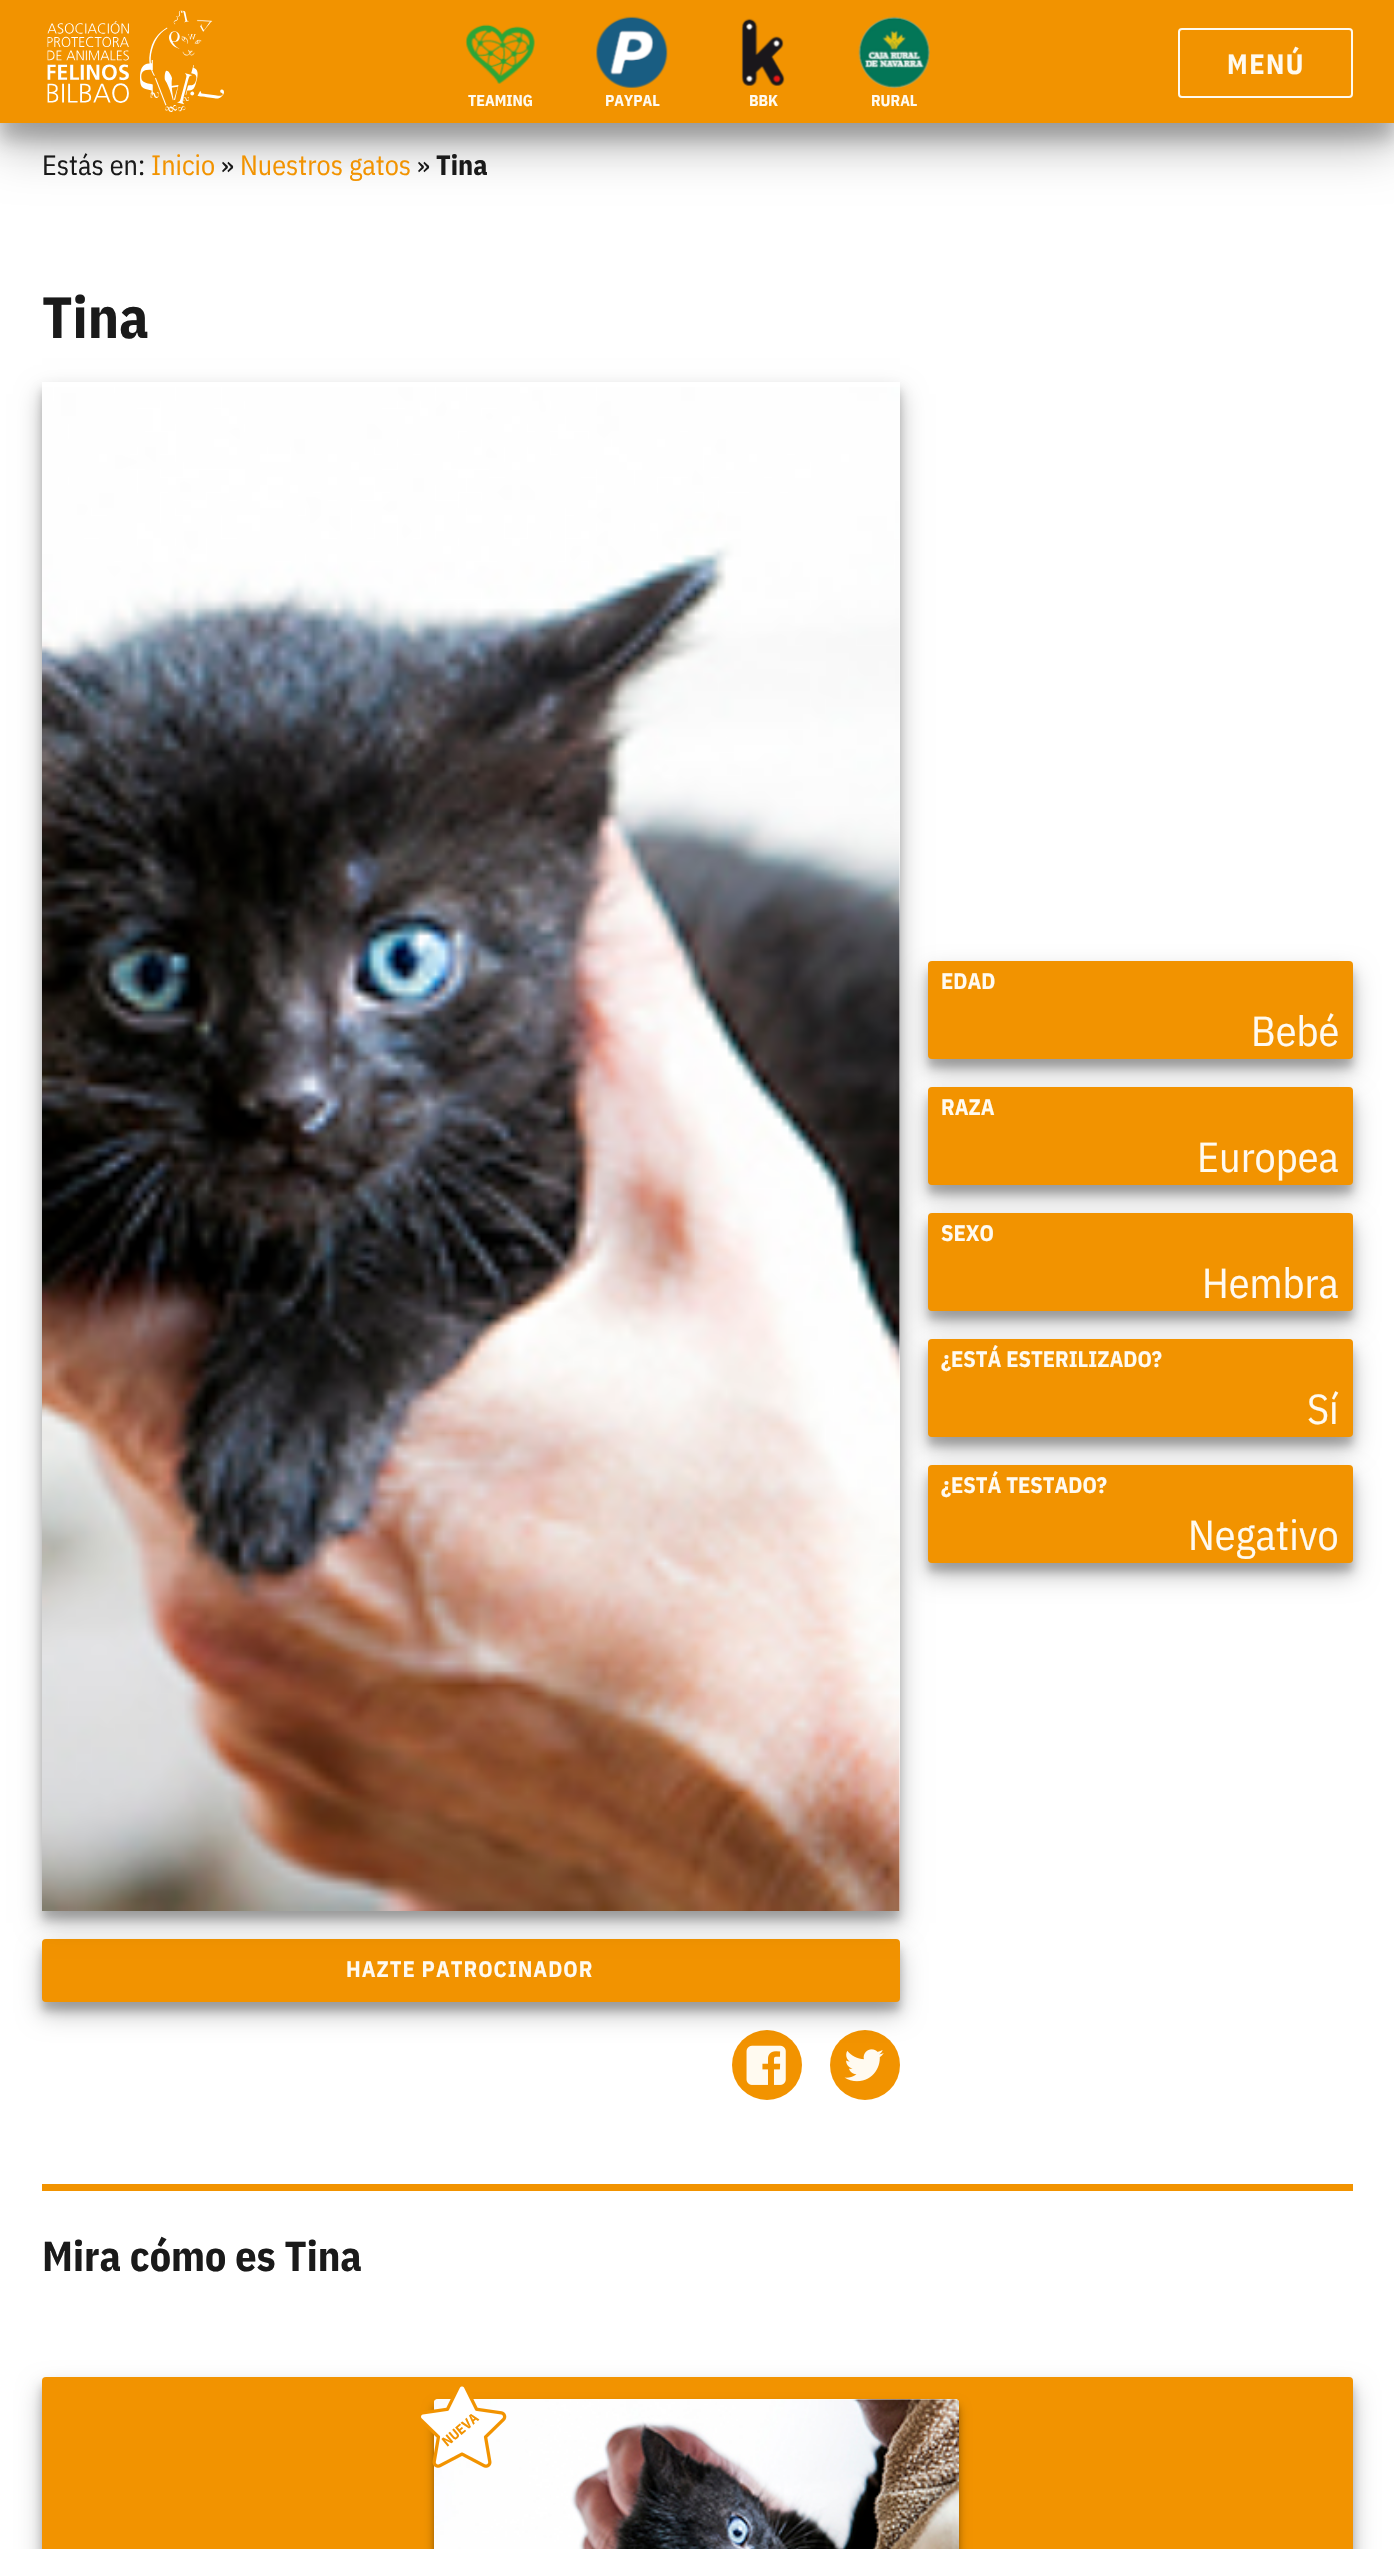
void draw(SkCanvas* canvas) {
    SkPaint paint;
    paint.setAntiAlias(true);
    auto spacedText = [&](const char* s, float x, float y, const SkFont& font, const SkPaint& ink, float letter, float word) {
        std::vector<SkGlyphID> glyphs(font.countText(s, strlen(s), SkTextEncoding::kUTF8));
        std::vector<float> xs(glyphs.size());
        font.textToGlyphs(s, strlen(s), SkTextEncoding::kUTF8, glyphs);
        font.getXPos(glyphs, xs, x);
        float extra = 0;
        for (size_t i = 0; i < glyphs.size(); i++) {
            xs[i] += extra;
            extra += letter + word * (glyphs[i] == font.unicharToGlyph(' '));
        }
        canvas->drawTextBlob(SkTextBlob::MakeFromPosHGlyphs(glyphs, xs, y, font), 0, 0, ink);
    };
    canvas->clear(0xFFFFFFFF);
    paint.setColor(0x38000000);
    paint.setMaskFilter(SkMaskFilter::MakeBlur(kNormal_SkBlurStyle, 9));
    canvas->drawRect(SkRect::MakeXYWH(0, 18, 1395, 122), paint);
    paint.setMaskFilter(nullptr);
    paint.setColor(0x40000000);
    paint.setMaskFilter(SkMaskFilter::MakeBlur(kNormal_SkBlurStyle, 24.5f));
    canvas->drawRect(SkRect::MakeXYWH(0, 25, 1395, 122), paint);
    paint.setMaskFilter(nullptr);
    paint.setColor(0xFFF29300);
    canvas->drawRect(SkRect::MakeXYWH(0, 0, 1394, 123), paint);
    canvas->drawImageRect(SkImages::DeferredFromEncodedData(SkData::MakeFromFileName("img1.png")), SkRect::MakeXYWH(47, 10, 177, 102), SkSamplingOptions());
    paint.setStyle(SkPaint::kStroke_Style);
    paint.setStrokeWidth(2);
    paint.setColor(0xFFFFFAF0);
    canvas->drawRoundRect(SkRect::MakeXYWH(1179, 29, 173, 68), 3, 3, paint);
    SkFont font1(fontMgr->matchFamilyStyle("IBM Plex Sans Condensed", SkFontStyle::Bold()), 28);
    font1.setSubpixel(true);
    paint.setStyle(SkPaint::kFill_Style);
    spacedText("MENÚ", 1227, 74, font1, paint, 1.5f, 0);
    canvas->drawImageRect(SkImages::DeferredFromEncodedData(SkData::MakeFromFileName("img2.png")), SkRect::MakeXYWH(465, 24, 70, 60), SkSamplingOptions());
    SkFont font2(fontMgr->matchFamilyStyle("IBM Plex Sans Condensed", SkFontStyle::Bold()), 15.75f);
    font2.setSubpixel(true);
    canvas->drawString("TEAMING", 468, 106, font2, paint);
    canvas->drawImageRect(SkImages::DeferredFromEncodedData(SkData::MakeFromFileName("img3.png")), SkRect::MakeXYWH(596, 16, 72, 72), SkSamplingOptions());
    canvas->drawString("PAYPAL", 605, 106, font2, paint);
    canvas->drawImageRect(SkImages::DeferredFromEncodedData(SkData::MakeFromFileName("img4.png")), SkRect::MakeXYWH(741, 18, 44, 68), SkSamplingOptions());
    canvas->drawString("BBK", 749, 106, font2, paint);
    canvas->drawImageRect(SkImages::DeferredFromEncodedData(SkData::MakeFromFileName("img5.png")), SkRect::MakeXYWH(858, 16, 72, 72), SkSamplingOptions());
    canvas->drawString("RURAL", 871, 106, font2, paint);
    SkFont font3(fontMgr->matchFamilyStyle("IBM Plex Sans Condensed", SkFontStyle::Normal()), 28);
    font3.setSubpixel(true);
    paint.setColor(0xFF1A1A1A);
    canvas->drawString("Estás en:", 42, 175, font3, paint);
    paint.setColor(0xFFF29300);
    canvas->drawString("Inicio", 151, 175, font3, paint);
    paint.setColor(0xFF1A1A1A);
    canvas->drawString("»", 221, 175, font3, paint);
    paint.setColor(0xFFF29300);
    canvas->drawString("Nuestros gatos", 240, 175, font3, paint);
    paint.setColor(0xFF1A1A1A);
    canvas->drawString("»", 417, 175, font3, paint);
    canvas->drawString("Tina", 436, 175, font1, paint);
    SkFont font4(fontMgr->matchFamilyStyle("IBM Plex Sans Condensed", SkFontStyle::Bold()), 58);
    font4.setSubpixel(true);
    canvas->drawString("Tina", 42, 338, font4, paint);
    paint.setColor(0x38000000);
    paint.setMaskFilter(SkMaskFilter::MakeBlur(kNormal_SkBlurStyle, 4.5f));
    canvas->drawRoundRect(SkRect::MakeXYWH(928, 970, 425, 98), 4, 4, paint);
    paint.setMaskFilter(nullptr);
    canvas->save();
    canvas->clipPath(SkPathBuilder(SkPathFillType::kEvenOdd).moveTo(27, 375).lineTo(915, 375).lineTo(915, 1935).lineTo(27, 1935).close().moveTo(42, 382).lineTo(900, 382).lineTo(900, 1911).lineTo(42, 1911).close().detach(), true);
    paint.setMaskFilter(SkMaskFilter::MakeBlur(kNormal_SkBlurStyle, 4.5f));
    canvas->drawRect(SkRect::MakeXYWH(42, 390, 858, 1530), paint);
    paint.setMaskFilter(nullptr);
    canvas->restore();
    paint.setMaskFilter(SkMaskFilter::MakeBlur(kNormal_SkBlurStyle, 4.5f));
    canvas->drawRoundRect(SkRect::MakeXYWH(42, 1948, 858, 63), 4, 4, paint);
    paint.setMaskFilter(nullptr);
    paint.setColor(0xFFF29300);
    canvas->drawCircle(767, 2065, 35, paint);
    canvas->drawImageRect(SkImages::DeferredFromEncodedData(SkData::MakeFromFileName("img7.png")), SkRect::MakeXYWH(746, 2045, 40, 40), SkSamplingOptions());
    canvas->drawCircle(865, 2065, 35, paint);
    canvas->drawImageRect(SkImages::DeferredFromEncodedData(SkData::MakeFromFileName("img8.png")), SkRect::MakeXYWH(844, 2049, 40, 33), SkSamplingOptions());
    paint.setColor(0x40000000);
    paint.setMaskFilter(SkMaskFilter::MakeBlur(kNormal_SkBlurStyle, 12));
    canvas->drawRoundRect(SkRect::MakeXYWH(42, 1951, 858, 63), 4, 4, paint);
    paint.setMaskFilter(nullptr);
    paint.setColor(0xFFF29300);
    canvas->drawRoundRect(SkRect::MakeXYWH(43, 1940, 856, 61), 3, 3, paint);
    paint.setStyle(SkPaint::kStroke_Style);
    canvas->drawRoundRect(SkRect::MakeXYWH(43, 1940, 856, 61), 3, 3, paint);
    canvas->save();
    canvas->clipPath(SkPathBuilder(SkPathFillType::kEvenOdd).moveTo(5, 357).lineTo(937, 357).lineTo(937, 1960).lineTo(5, 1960).close().moveTo(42, 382).lineTo(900, 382).lineTo(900, 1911).lineTo(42, 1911).close().detach(), true);
    paint.setStyle(SkPaint::kFill_Style);
    paint.setColor(0x40000000);
    paint.setMaskFilter(SkMaskFilter::MakeBlur(kNormal_SkBlurStyle, 12));
    canvas->drawRect(SkRect::MakeXYWH(42, 394, 858, 1529), paint);
    paint.setMaskFilter(nullptr);
    canvas->restore();
    canvas->drawImageRect(SkImages::DeferredFromEncodedData(SkData::MakeFromFileName("img6.png")), SkRect::MakeXYWH(42, 387, 858, 1524), SkSamplingOptions());
    paint.setMaskFilter(SkMaskFilter::MakeBlur(kNormal_SkBlurStyle, 12));
    canvas->drawRoundRect(SkRect::MakeXYWH(928, 973, 425, 98), 4, 4, paint);
    paint.setMaskFilter(nullptr);
    paint.setColor(0xFFF29300);
    canvas->drawRoundRect(SkRect::MakeXYWH(928, 961, 425, 98), 4, 4, paint);
    SkFont font5(fontMgr->matchFamilyStyle("IBM Plex Sans Condensed", SkFontStyle::Bold()), 22.4f);
    font5.setSubpixel(true);
    paint.setColor(0xFFFFFAF0);
    canvas->drawString("EDAD", 941, 989, font5, paint);
    SkFont font6(fontMgr->matchFamilyStyle("IBM Plex Sans Condensed", SkFontStyle::Normal()), 42);
    font6.setSubpixel(true);
    canvas->drawString("Bebé", 1251, 1046, font6, paint);
    paint.setColor(0x38000000);
    paint.setMaskFilter(SkMaskFilter::MakeBlur(kNormal_SkBlurStyle, 4.5f));
    canvas->drawRoundRect(SkRect::MakeXYWH(928, 1096, 425, 98), 4, 4, paint);
    paint.setMaskFilter(nullptr);
    paint.setColor(0x40000000);
    paint.setMaskFilter(SkMaskFilter::MakeBlur(kNormal_SkBlurStyle, 12));
    canvas->drawRoundRect(SkRect::MakeXYWH(928, 1099, 425, 98), 4, 4, paint);
    paint.setMaskFilter(nullptr);
    paint.setColor(0xFFF29300);
    canvas->drawRoundRect(SkRect::MakeXYWH(928, 1087, 425, 98), 4, 4, paint);
    paint.setColor(0xFFFFFAF0);
    canvas->drawString("RAZA", 941, 1115, font5, paint);
    canvas->drawString("Europea", 1197, 1172, font6, paint);
    paint.setColor(0x38000000);
    paint.setMaskFilter(SkMaskFilter::MakeBlur(kNormal_SkBlurStyle, 4.5f));
    canvas->drawRoundRect(SkRect::MakeXYWH(928, 1222, 425, 98), 4, 4, paint);
    paint.setMaskFilter(nullptr);
    paint.setColor(0x40000000);
    paint.setMaskFilter(SkMaskFilter::MakeBlur(kNormal_SkBlurStyle, 12));
    canvas->drawRoundRect(SkRect::MakeXYWH(928, 1225, 425, 98), 4, 4, paint);
    paint.setMaskFilter(nullptr);
    paint.setColor(0xFFF29300);
    canvas->drawRoundRect(SkRect::MakeXYWH(928, 1213, 425, 98), 4, 4, paint);
    paint.setColor(0xFFFFFAF0);
    canvas->drawString("SEXO", 941, 1241, font5, paint);
    canvas->drawString("Hembra", 1202, 1298, font6, paint);
    paint.setColor(0x38000000);
    paint.setMaskFilter(SkMaskFilter::MakeBlur(kNormal_SkBlurStyle, 4.5f));
    canvas->drawRoundRect(SkRect::MakeXYWH(928, 1348, 425, 98), 4, 4, paint);
    paint.setMaskFilter(nullptr);
    paint.setColor(0x40000000);
    paint.setMaskFilter(SkMaskFilter::MakeBlur(kNormal_SkBlurStyle, 12));
    canvas->drawRoundRect(SkRect::MakeXYWH(928, 1351, 425, 98), 4, 4, paint);
    paint.setMaskFilter(nullptr);
    paint.setColor(0xFFF29300);
    canvas->drawRoundRect(SkRect::MakeXYWH(928, 1339, 425, 98), 4, 4, paint);
    paint.setColor(0xFFFFFAF0);
    canvas->drawString("¿ESTÁ ESTERILIZADO?", 941, 1367, font5, paint);
    canvas->drawString("Sí", 1307, 1424, font6, paint);
    paint.setColor(0x38000000);
    paint.setMaskFilter(SkMaskFilter::MakeBlur(kNormal_SkBlurStyle, 4.5f));
    canvas->drawRoundRect(SkRect::MakeXYWH(928, 1474, 425, 98), 4, 4, paint);
    paint.setMaskFilter(nullptr);
    paint.setColor(0x40000000);
    paint.setMaskFilter(SkMaskFilter::MakeBlur(kNormal_SkBlurStyle, 12));
    canvas->drawRoundRect(SkRect::MakeXYWH(928, 1477, 425, 98), 4, 4, paint);
    paint.setMaskFilter(nullptr);
    paint.setColor(0xFFF29300);
    canvas->drawRoundRect(SkRect::MakeXYWH(928, 1465, 425, 98), 4, 4, paint);
    paint.setColor(0xFFFFFAF0);
    canvas->drawString("¿ESTÁ TESTADO?", 941, 1493, font5, paint);
    canvas->drawString("Negativo", 1188, 1550, font6, paint);
    spacedText("HAZTE PATROCINADOR", 346, 1977, font5, paint, 1, 0);
    paint.setColor(0xFFF29300);
    canvas->drawRect(SkRect::MakeXYWH(42, 2184, 1311, 7), paint);
    SkFont font7(fontMgr->matchFamilyStyle("IBM Plex Sans Condensed", SkFontStyle::Bold()), 42);
    font7.setSubpixel(true);
    paint.setColor(0xFF1A1A1A);
    canvas->drawString("Mira cómo es Tina", 42, 2271, font7, paint);
    paint.setColor(0x38000000);
    paint.setMaskFilter(SkMaskFilter::MakeBlur(kNormal_SkBlurStyle, 4.5f));
    canvas->drawRoundRect(SkRect::MakeXYWH(42, 2385, 1311, 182), 4, 4, paint);
    paint.setMaskFilter(nullptr);
    paint.setColor(0x40000000);
    paint.setMaskFilter(SkMaskFilter::MakeBlur(kNormal_SkBlurStyle, 12));
    canvas->drawRoundRect(SkRect::MakeXYWH(42, 2389, 1311, 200), 4, 4, paint);
    paint.setMaskFilter(nullptr);
    paint.setColor(0xFFF29300);
    canvas->drawRoundRect(SkRect::MakeXYWH(42, 2377, 1311, 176), 4, 4, paint);
    paint.setColor(0x38000000);
    paint.setMaskFilter(SkMaskFilter::MakeBlur(kNormal_SkBlurStyle, 2.5f));
    canvas->drawRoundRect(SkRect::MakeXYWH(434, 2405, 525, 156), 4, 4, paint);
    paint.setMaskFilter(nullptr);
    paint.setColor(0x40000000);
    paint.setMaskFilter(SkMaskFilter::MakeBlur(kNormal_SkBlurStyle, 6));
    canvas->drawRoundRect(SkRect::MakeXYWH(434, 2406, 525, 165), 4, 4, paint);
    paint.setMaskFilter(nullptr);
    paint.setColor(0xFFFFFFFF);
    canvas->drawRoundRect(SkRect::MakeXYWH(434, 2399, 525, 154), 4, 4, paint);
    canvas->drawImageRect(SkImages::DeferredFromEncodedData(SkData::MakeFromFileName("img9.png")), SkRect::MakeXYWH(434, 2399, 525, 150), SkSamplingOptions());
    canvas->drawImageRect(SkImages::DeferredFromEncodedData(SkData::MakeFromFileName("img10.png")), SkRect::MakeXYWH(421, 2386, 86, 82), SkSamplingOptions());
    SkFont font8(fontMgr->matchFamilyStyle("IBM Plex Sans Condensed", SkFontStyle::Bold()), 14);
    font8.setSubpixel(true);
    paint.setColor(0xFFF29300);
    canvas->save();
    canvas->rotate(-40, 447, 2447);
    canvas->drawString("NUEVA", 447, 2447, font8, paint);
    canvas->restore();
}
